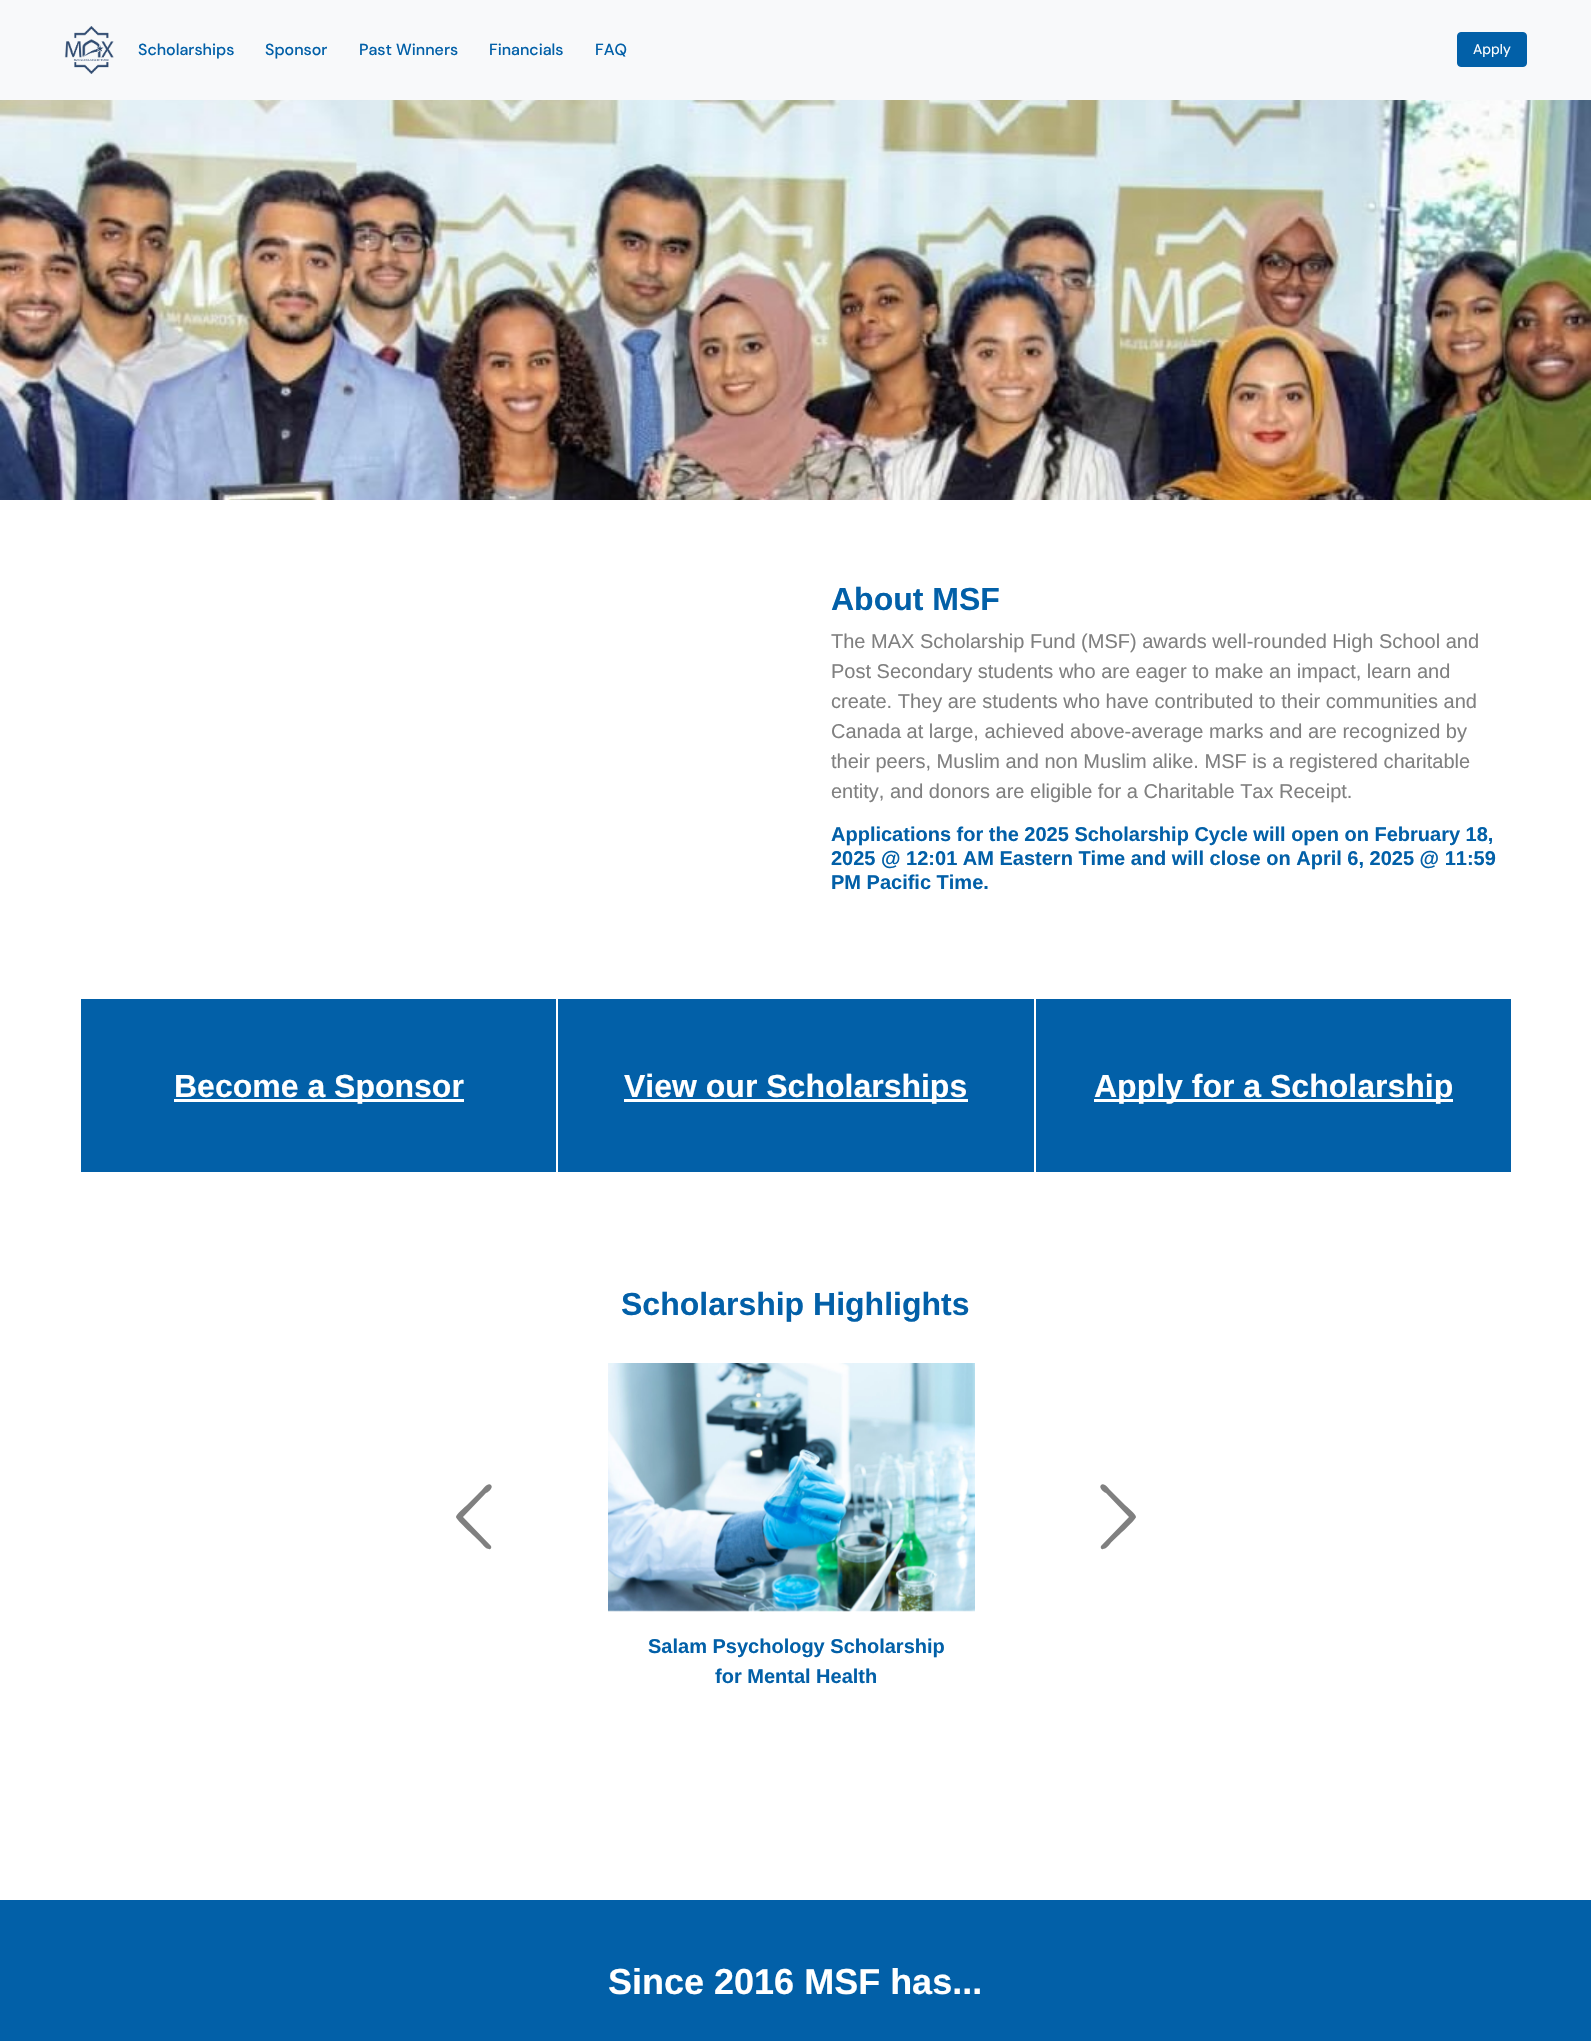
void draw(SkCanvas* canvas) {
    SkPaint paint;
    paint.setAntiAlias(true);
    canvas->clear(0xFFFFFFFF);
    paint.setColor(0xFFF8F9FA);
    canvas->drawRect(SkRect::MakeXYWH(0, 0, 1591, 100), paint);
    canvas->drawImageRect(SkImages::DeferredFromEncodedData(SkData::MakeFromFileName("img1.png")), SkRect::MakeXYWH(64, 26, 50, 48), SkSamplingOptions());
    SkFont font1(fontMgr->matchFamilyStyle("DM Sans", SkFontStyle(500, SkFontStyle::kNormal_Width, SkFontStyle::kUpright_Slant)), 16);
    font1.setSubpixel(true);
    paint.setColor(0xFF0260A8);
    canvas->drawString("Scholarships", 138, 55, font1, paint);
    canvas->drawString("Sponsor", 265, 55, font1, paint);
    canvas->drawString("Past Winners", 359, 55, font1, paint);
    canvas->drawString("Financials", 489, 55, font1, paint);
    canvas->drawString("FAQ", 595, 55, font1, paint);
    canvas->drawRoundRect(SkRect::MakeXYWH(1457.5f, 32.5f, 69, 34), 3.5f, 3.5f, paint);
    paint.setStyle(SkPaint::kStroke_Style);
    paint.setStrokeWidth(1);
    canvas->drawRoundRect(SkRect::MakeXYWH(1457.5f, 32.5f, 69, 34), 3.5f, 3.5f, paint);
    SkFont font2(fontMgr->matchFamilyStyle("DM Sans", SkFontStyle::Normal()), 14);
    font2.setSubpixel(true);
    paint.setStyle(SkPaint::kFill_Style);
    paint.setColor(0xFFFFFFFF);
    canvas->drawString("Apply", 1473, 54, font2, paint);
    canvas->drawImageRect(SkImages::DeferredFromEncodedData(SkData::MakeFromFileName("img2.png")), SkRect::MakeXYWH(0, 100, 1591, 400), SkSamplingOptions());
    SkFont font3(fontMgr->matchFamilyStyle("Liberation Sans", SkFontStyle::Bold()), 32);
    font3.setSubpixel(true);
    paint.setColor(0xFF0260A8);
    canvas->drawString("About MSF", 831, 610, font3, paint);
    SkFont font4(fontMgr->matchFamilyStyle("Liberation Sans", SkFontStyle::Normal()), 20);
    font4.setSubpixel(true);
    paint.setColor(0xFF808080);
    canvas->drawString("The MAX Scholarship Fund (MSF) awards well-rounded High School and", 831, 648, font4, paint);
    canvas->drawString("Post Secondary students who are eager to make an impact, learn and", 831, 678, font4, paint);
    canvas->drawString("create. They are students who have contributed to their communities and", 831, 708, font4, paint);
    canvas->drawString("Canada at large, achieved above-average marks and are recognized by", 831, 738, font4, paint);
    canvas->drawString("their peers, Muslim and non Muslim alike. MSF is a registered charitable", 831, 768, font4, paint);
    canvas->drawString("entity, and donors are eligible for a Charitable Tax Receipt.", 831, 798, font4, paint);
    SkFont font5(fontMgr->matchFamilyStyle("Liberation Sans", SkFontStyle::Bold()), 20);
    font5.setSubpixel(true);
    paint.setColor(0xFF0260A8);
    canvas->drawString("Applications for the 2025 Scholarship Cycle will open on February 18,", 831, 841, font5, paint);
    canvas->drawString("2025 @ 12:01 AM Eastern Time and will close on April 6, 2025 @ 11:59", 831, 865, font5, paint);
    canvas->drawString("PM Pacific Time.", 831, 889, font5, paint);
    canvas->drawRect(SkRect::MakeXYWH(81, 999, 475, 173), paint);
    paint.setColor(0xFFFFFFFF);
    canvas->drawRect(SkRect::MakeXYWH(174, 1099, 290, 3), paint);
    canvas->drawString("Become a Sponsor", 174, 1097, font3, paint);
    paint.setColor(0xFF0260A8);
    canvas->drawRect(SkRect::MakeXYWH(558, 999, 476, 173), paint);
    paint.setColor(0xFFFFFFFF);
    canvas->drawRect(SkRect::MakeXYWH(624, 1099, 344, 3), paint);
    canvas->drawString("View our Scholarships", 624, 1097, font3, paint);
    paint.setColor(0xFF0260A8);
    canvas->drawRect(SkRect::MakeXYWH(1036, 999, 475, 173), paint);
    paint.setColor(0xFFFFFFFF);
    canvas->drawRect(SkRect::MakeXYWH(1094, 1099, 359, 3), paint);
    canvas->drawString("Apply for a Scholarship", 1094, 1097, font3, paint);
    paint.setColor(0xFF0260A8);
    canvas->drawString("Scholarship Highlights", 621, 1315, font3, paint);
    paint.setColor(0xFF808080);
    canvas->drawPath(SkPathBuilder().moveTo(491, 1485).cubicTo(494, 1488, 487, 1493, 486, 1493).lineTo(463, 1517).lineTo(491, 1546).cubicTo(492, 1548, 490, 1550, 489, 1549).cubicTo(486, 1549, 484, 1546, 482, 1544).cubicTo(479, 1540, 456, 1520, 456, 1517).cubicTo(456, 1514, 465, 1507, 467, 1505).lineTo(482, 1490).cubicTo(483, 1489, 488, 1482, 491, 1485).close().detach(), paint);
    canvas->drawPath(SkPathBuilder().moveTo(1101, 1485).cubicTo(1104, 1482, 1109, 1489, 1110, 1490).lineTo(1125, 1505).cubicTo(1127, 1507, 1136, 1514, 1136, 1517).cubicTo(1136, 1520, 1113, 1540, 1110, 1544).cubicTo(1108, 1546, 1106, 1549, 1103, 1549).cubicTo(1102, 1550, 1100, 1548, 1101, 1546).lineTo(1129, 1517).lineTo(1106, 1493).cubicTo(1105, 1493, 1098, 1488, 1101, 1485).close().detach(), paint);
    canvas->drawImageRect(SkImages::DeferredFromEncodedData(SkData::MakeFromFileName("img3.png")), SkRect::MakeXYWH(608, 1363, 367, 249), SkSamplingOptions());
    paint.setColor(0xFF0260A8);
    canvas->drawString("Salam Psychology Scholarship", 648, 1653, font5, paint);
    canvas->drawString("for Mental Health", 715, 1683, font5, paint);
    canvas->drawRect(SkRect::MakeXYWH(0, 1900, 1591, 141), paint);
    SkFont font6(fontMgr->matchFamilyStyle("Liberation Sans", SkFontStyle::Bold()), 36);
    font6.setSubpixel(true);
    paint.setColor(0xFFFFFFFF);
    canvas->drawString("Since 2016 MSF has...", 608, 1994, font6, paint);
}
